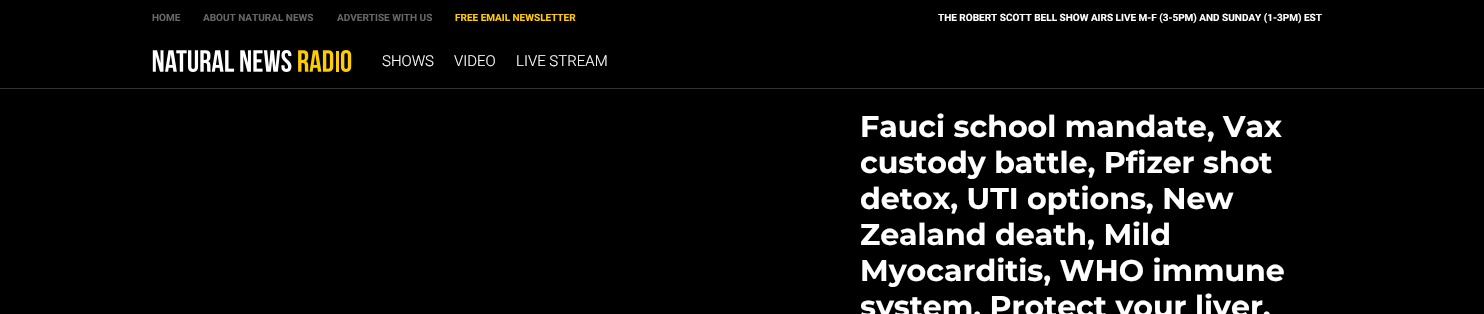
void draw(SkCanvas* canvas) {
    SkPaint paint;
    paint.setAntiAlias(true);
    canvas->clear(0xFF000000);
    SkFont font1(fontMgr->matchFamilyStyle("Roboto", SkFontStyle::Bold()), 10);
    font1.setSubpixel(true);
    paint.setColor(0xFF666666);
    canvas->drawString("HOME", 152, 21, font1, paint);
    canvas->drawString("ABOUT NATURAL NEWS", 203, 21, font1, paint);
    canvas->drawString("ADVERTISE WITH US", 337, 21, font1, paint);
    paint.setColor(0xFFFFCC00);
    canvas->drawString("FREE EMAIL NEWSLETTER", 455, 21, font1, paint);
    paint.setColor(0xFFFFFFFF);
    canvas->drawString("THE ROBERT SCOTT BELL SHOW AIRS LIVE M-F (3-5PM) AND SUNDAY (1-3PM) EST", 938, 21, font1, paint);
    paint.setColor(0xFF333333);
    canvas->drawRect(SkRect::MakeXYWH(0, 88, 1484, 1), paint);
    canvas->drawImageRect(SkImages::DeferredFromEncodedData(SkData::MakeFromFileName("img1.png")), SkRect::MakeXYWH(152, 50, 200, 22), SkSamplingOptions());
    SkFont font2(fontMgr->matchFamilyStyle("Roboto", SkFontStyle(300, SkFontStyle::kNormal_Width, SkFontStyle::kUpright_Slant)), 15);
    font2.setSubpixel(true);
    paint.setColor(0xFFFFFFFF);
    canvas->drawString("SHOWS", 382, 66, font2, paint);
    canvas->drawString("VIDEO", 454, 66, font2, paint);
    canvas->drawString("LIVE STREAM", 516, 66, font2, paint);
    SkFont font3(fontMgr->matchFamilyStyle("Montserrat", SkFontStyle::Bold()), 30);
    font3.setSubpixel(true);
    canvas->drawString("Fauci school mandate, Vax", 860, 137, font3, paint);
    canvas->drawString("custody battle, Pfizer shot", 860, 173, font3, paint);
    canvas->drawString("detox, UTI options, New", 860, 209, font3, paint);
    canvas->drawString("Zealand death, Mild", 860, 245, font3, paint);
    canvas->drawString("Myocarditis, WHO immune", 860, 281, font3, paint);
    canvas->drawString("system, Protect your liver,", 860, 317, font3, paint);
}
